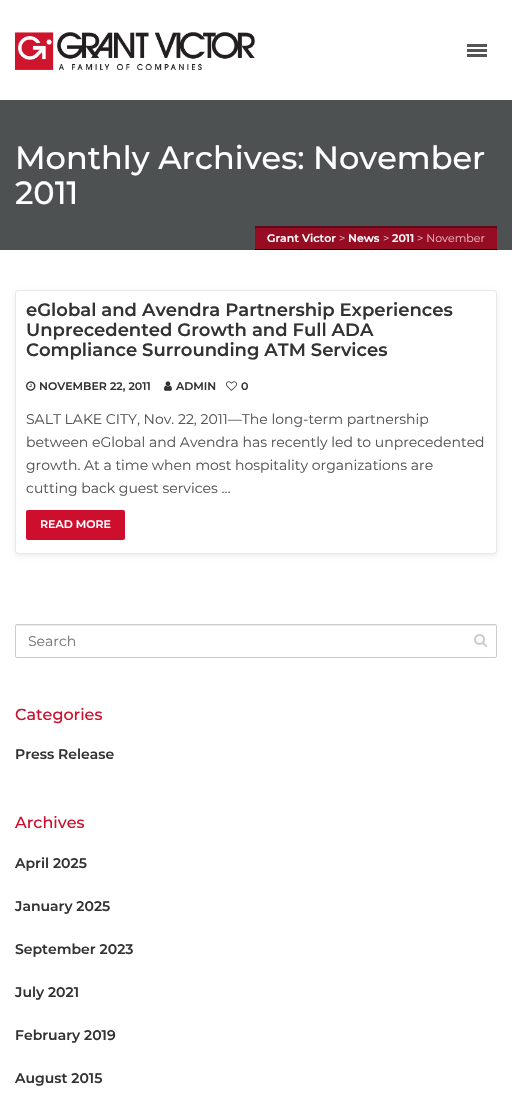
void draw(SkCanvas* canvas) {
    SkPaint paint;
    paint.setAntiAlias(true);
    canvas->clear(0xFFFFFFFF);
    canvas->drawImageRect(SkImages::DeferredFromEncodedData(SkData::MakeFromFileName("img1.png")), SkRect::MakeXYWH(15, 32, 240, 38), SkSamplingOptions());
    paint.setColor(0xFF555555);
    canvas->drawRect(SkRect::MakeXYWH(467, 44, 20, 3), paint);
    canvas->drawRect(SkRect::MakeXYWH(467, 49, 20, 3), paint);
    canvas->drawRect(SkRect::MakeXYWH(467, 54, 20, 3), paint);
    paint.setColor(0xFF4D5151);
    canvas->drawRect(SkRect::MakeXYWH(0, 100, 512, 150), paint);
    SkFont font1(fontMgr->matchFamilyStyle("Montserrat", SkFontStyle(500, SkFontStyle::kNormal_Width, SkFontStyle::kUpright_Slant)), 32);
    font1.setSubpixel(true);
    paint.setColor(0xFFFFFFFF);
    canvas->drawString("Monthly Archives: November", 15, 169, font1, paint);
    canvas->drawString("2011", 15, 204, font1, paint);
    paint.setColor(0xFF5E0919);
    canvas->drawRect(SkRect::MakeXYWH(255, 226, 242, 4), paint);
    paint.setColor(0xFF000000);
    canvas->drawRect(SkRect::MakeXYWH(255, 249, 242, 1), paint);
    paint.setColor(0xFF960C23);
    canvas->drawPath(SkPathBuilder().moveTo(257, 228).lineTo(495, 228).cubicTo(496, 228, 497, 229, 497, 230).lineTo(497, 249).lineTo(255, 249).lineTo(255, 230).cubicTo(255, 229, 256, 228, 257, 228).close().detach(), paint);
    SkFont font2(fontMgr->matchFamilyStyle("Montserrat", SkFontStyle(600, SkFontStyle::kNormal_Width, SkFontStyle::kUpright_Slant)), 11);
    font2.setSubpixel(true);
    paint.setColor(0xFFFFFFFF);
    canvas->drawString("Grant Victor", 267, 242, font2, paint);
    SkFont font3(fontMgr->matchFamilyStyle("Montserrat", SkFontStyle::Normal()), 11);
    font3.setSubpixel(true);
    paint.setColor(0xFFE0B6BD);
    canvas->drawString(">", 339, 242, font3, paint);
    paint.setColor(0xFFFFFFFF);
    canvas->drawString("News", 348, 242, font2, paint);
    paint.setColor(0xFFE0B6BD);
    canvas->drawString(">", 383, 242, font3, paint);
    paint.setColor(0xFFFFFFFF);
    canvas->drawString("2011", 392, 242, font2, paint);
    paint.setColor(0xFFE0B6BD);
    canvas->drawString("> November", 417, 242, font3, paint);
    paint.setColor(0x12000000);
    paint.setMaskFilter(SkMaskFilter::MakeBlur(kNormal_SkBlurStyle, 2.5f));
    canvas->drawRoundRect(SkRect::MakeXYWH(15, 292, 482, 264), 3, 3, paint);
    paint.setMaskFilter(nullptr);
    paint.setColor(0xFFFFFFFF);
    canvas->drawRoundRect(SkRect::MakeXYWH(15.5f, 290.5f, 481, 263), 2.5f, 2.5f, paint);
    paint.setStyle(SkPaint::kStroke_Style);
    paint.setStrokeWidth(1);
    paint.setColor(0xFFE8E8E8);
    canvas->drawRoundRect(SkRect::MakeXYWH(15.5f, 290.5f, 481, 263), 2.5f, 2.5f, paint);
    SkFont font4(fontMgr->matchFamilyStyle("Montserrat", SkFontStyle(600, SkFontStyle::kNormal_Width, SkFontStyle::kUpright_Slant)), 18);
    font4.setSubpixel(true);
    paint.setStyle(SkPaint::kFill_Style);
    paint.setColor(0xFF333333);
    canvas->drawString("eGlobal and Avendra Partnership Experiences", 26, 316, font4, paint);
    canvas->drawString("Unprecedented Growth and Full ADA", 26, 336, font4, paint);
    canvas->drawString("Compliance Surrounding ATM Services", 26, 356, font4, paint);
    canvas->drawImageRect(SkImages::DeferredFromEncodedData(SkData::MakeFromFileName("img2.png")), SkRect::MakeXYWH(26, 381, 10, 10), SkSamplingOptions());
    canvas->drawString("NOVEMBER 22, 2011", 39, 390, font2, paint);
    canvas->drawImageRect(SkImages::DeferredFromEncodedData(SkData::MakeFromFileName("img3.png")), SkRect::MakeXYWH(164, 381, 8, 10), SkSamplingOptions());
    canvas->drawString("ADMIN", 176, 390, font2, paint);
    canvas->drawImageRect(SkImages::DeferredFromEncodedData(SkData::MakeFromFileName("img4.png")), SkRect::MakeXYWH(226, 381, 11, 10), SkSamplingOptions());
    canvas->drawString("0", 241, 390, font2, paint);
    SkFont font5(fontMgr->matchFamilyStyle("Montserrat", SkFontStyle::Normal()), 14);
    font5.setSubpixel(true);
    paint.setColor(0xFF555555);
    canvas->drawString("SALT LAKE CITY, Nov. 22, 2011—The long-term partnership", 26, 424, font5, paint);
    canvas->drawString("between eGlobal and Avendra has recently led to unprecedented", 26, 447, font5, paint);
    canvas->drawString("growth. At a time when most hospitality organizations are", 26, 470, font5, paint);
    canvas->drawString("cutting back guest services …", 26, 493, font5, paint);
    paint.setColor(0xFFCE0E2D);
    canvas->drawRoundRect(SkRect::MakeXYWH(26, 510, 99, 30), 2, 2, paint);
    paint.setColor(0xFFFFFFFF);
    canvas->drawString("READ MORE", 40, 528, font2, paint);
    paint.setColor(0xFFECECEC);
    canvas->drawPath(SkPathBuilder().moveTo(17, 626).lineTo(495, 626).cubicTo(496, 626, 496, 626, 496, 627).cubicTo(496, 626, 496, 625, 495, 625).lineTo(17, 625).lineTo(16, 626).lineTo(16, 627).cubicTo(16, 626, 16, 626, 17, 626).close().detach(), paint);
    paint.setStyle(SkPaint::kStroke_Style);
    paint.setColor(0xFFCCCCCC);
    canvas->drawRoundRect(SkRect::MakeXYWH(15.5f, 624.5f, 481, 33), 1.5f, 1.5f, paint);
    paint.setStyle(SkPaint::kFill_Style);
    paint.setColor(0xFF757575);
    canvas->drawString("Search", 28, 646, font5, paint);
    canvas->drawImageRect(SkImages::DeferredFromEncodedData(SkData::MakeFromFileName("img5.png")), SkRect::MakeXYWH(474, 634, 13, 13), SkSamplingOptions());
    SkFont font6(fontMgr->matchFamilyStyle("Montserrat", SkFontStyle(500, SkFontStyle::kNormal_Width, SkFontStyle::kUpright_Slant)), 16);
    font6.setSubpixel(true);
    paint.setColor(0xFFCE0E2D);
    canvas->drawString("Categories", 15, 720, font6, paint);
    SkFont font7(fontMgr->matchFamilyStyle("Montserrat", SkFontStyle(600, SkFontStyle::kNormal_Width, SkFontStyle::kUpright_Slant)), 14);
    font7.setSubpixel(true);
    paint.setColor(0xFF333333);
    canvas->drawString("Press Release", 15, 759, font7, paint);
    paint.setColor(0xFFCE0E2D);
    canvas->drawString("Archives", 15, 828, font6, paint);
    paint.setColor(0xFF333333);
    canvas->drawString("April 2025", 15, 868, font7, paint);
    canvas->drawString("January 2025", 15, 911, font7, paint);
    canvas->drawString("September 2023", 15, 954, font7, paint);
    canvas->drawString("July 2021", 15, 997, font7, paint);
    canvas->drawString("February 2019", 15, 1040, font7, paint);
    canvas->drawString("August 2015", 15, 1083, font7, paint);
}
